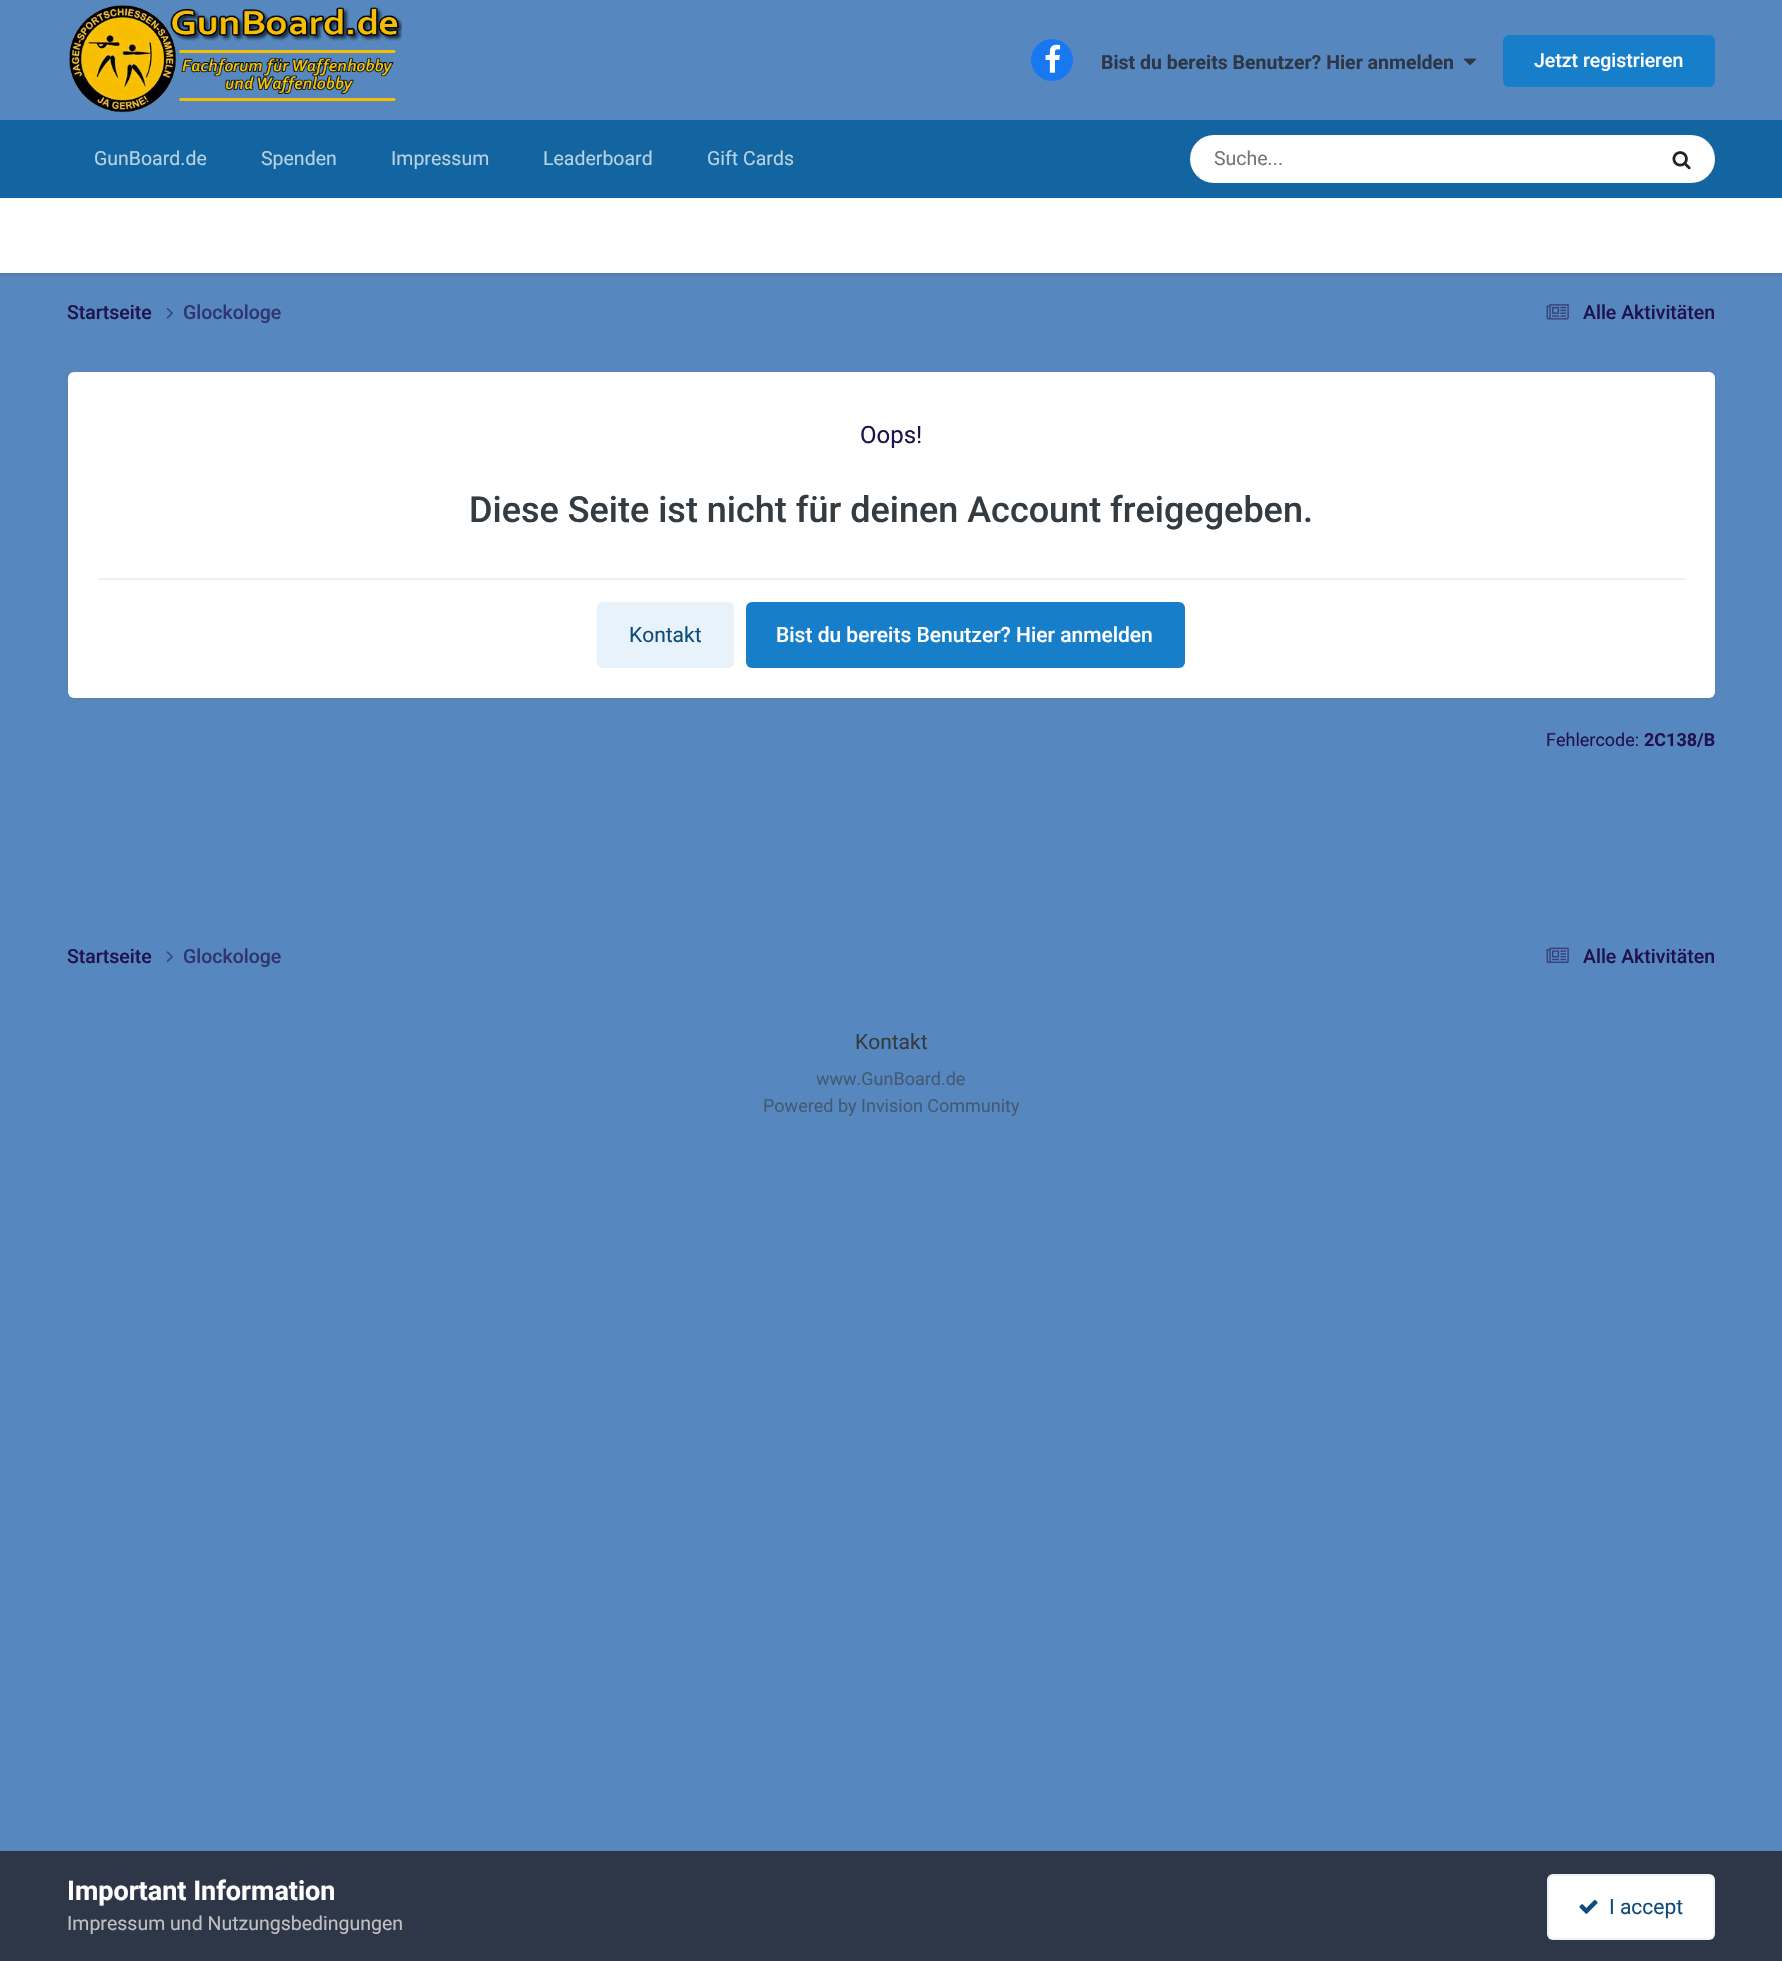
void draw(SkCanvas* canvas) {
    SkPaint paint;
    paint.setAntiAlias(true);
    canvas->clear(0xFF5687BE);
    canvas->drawImageRect(SkImages::DeferredFromEncodedData(SkData::MakeFromFileName("img1.png")), SkRect::MakeXYWH(69, 5, 333, 108), SkSamplingOptions());
    paint.setColor(0xFF1778F2);
    canvas->drawCircle(1052, 60, 21, paint);
    canvas->drawImageRect(SkImages::DeferredFromEncodedData(SkData::MakeFromFileName("img2.png")), SkRect::MakeXYWH(1045, 44, 16, 29), SkSamplingOptions());
    SkFont font1(fontMgr->matchFamilyStyle("Roboto", SkFontStyle::Bold()), 19.5f);
    font1.setSubpixel(true);
    paint.setColor(0xFF2D3748);
    canvas->drawString("Bist du bereits Benutzer? Hier anmelden", 1101, 69, font1, paint);
    canvas->drawImageRect(SkImages::DeferredFromEncodedData(SkData::MakeFromFileName("img3.png")), SkRect::MakeXYWH(1464, 58, 12, 8), SkSamplingOptions());
    paint.setColor(0xFF177EC9);
    canvas->drawRoundRect(SkRect::MakeXYWH(1503, 35, 212, 52), 6, 6, paint);
    SkFont font2(fontMgr->matchFamilyStyle("Roboto", SkFontStyle(500, SkFontStyle::kNormal_Width, SkFontStyle::kUpright_Slant)), 19.5f);
    font2.setSubpixel(true);
    paint.setColor(0xFFFFFFFF);
    canvas->drawString("Jetzt registrieren", 1534, 67, font2, paint);
    paint.setColor(0xFF1265A1);
    canvas->drawRect(SkRect::MakeXYWH(0, 120, 1782, 78), paint);
    SkFont font3(fontMgr->matchFamilyStyle("Roboto", SkFontStyle::Normal()), 19.5f);
    font3.setSubpixel(true);
    paint.setColor(0xFFB8D1E3);
    canvas->drawString("GunBoard.de", 94, 165, font3, paint);
    canvas->drawString("Spenden", 261, 165, font3, paint);
    canvas->drawString("Impressum", 391, 165, font3, paint);
    canvas->drawString("Leaderboard", 543, 165, font3, paint);
    canvas->drawString("Gift Cards", 707, 165, font3, paint);
    paint.setColor(0xFFFFFFFF);
    canvas->drawRoundRect(SkRect::MakeXYWH(1190, 135, 525, 48), 24, 24, paint);
    paint.setColor(0xFF757575);
    canvas->drawString("Suche...", 1214, 165, font3, paint);
    canvas->drawImageRect(SkImages::DeferredFromEncodedData(SkData::MakeFromFileName("img4.png")), SkRect::MakeXYWH(1672, 151, 19, 19), SkSamplingOptions());
    paint.setColor(0x1A000000);
    paint.setMaskFilter(SkMaskFilter::MakeBlur(kNormal_SkBlurStyle, 1.5f));
    canvas->drawRect(SkRect::MakeXYWH(0, 200, 1782, 75), paint);
    paint.setMaskFilter(nullptr);
    paint.setColor(0xFFFFFFFF);
    canvas->drawRect(SkRect::MakeXYWH(0, 198, 1782, 75), paint);
    paint.setColor(0xFF20124D);
    canvas->drawString("Startseite", 67, 319, font2, paint);
    canvas->drawImageRect(SkImages::DeferredFromEncodedData(SkData::MakeFromFileName("img5.png")), SkRect::MakeXYWH(166, 307, 7, 12), SkSamplingOptions());
    paint.setColor(0xFF30356F);
    canvas->drawString("Glockologe", 183, 319, font2, paint);
    canvas->drawImageRect(SkImages::DeferredFromEncodedData(SkData::MakeFromFileName("img6.png")), SkRect::MakeXYWH(1546, 304, 23, 16), SkSamplingOptions());
    paint.setColor(0xFF20124D);
    canvas->drawString("Alle Aktivitäten", 1583, 319, font2, paint);
    paint.setColor(0x1A2D3748);
    paint.setMaskFilter(SkMaskFilter::MakeBlur(kNormal_SkBlurStyle, 3));
    canvas->drawRoundRect(SkRect::MakeXYWH(69, 377, 1644, 322), 5, 5, paint);
    paint.setMaskFilter(nullptr);
    paint.setColor(0xFFFFFFFF);
    canvas->drawRoundRect(SkRect::MakeXYWH(68, 372, 1647, 326), 6, 6, paint);
    SkFont font4(fontMgr->matchFamilyStyle("Roboto", SkFontStyle::Normal()), 24);
    font4.setSubpixel(true);
    paint.setColor(0xFF20124D);
    canvas->drawString("Oops!", 860, 443, font4, paint);
    SkFont font5(fontMgr->matchFamilyStyle("Roboto", SkFontStyle(500, SkFontStyle::kNormal_Width, SkFontStyle::kUpright_Slant)), 36);
    font5.setSubpixel(true);
    paint.setColor(0xFF353C41);
    canvas->drawString("Diese Seite ist nicht für deinen Account freigegeben.", 469, 522, font5, paint);
    paint.setColor(0xFFEFEFF0);
    canvas->drawRect(SkRect::MakeXYWH(98, 578, 1587, 2), paint);
    paint.setColor(0xFFE8F2FA);
    canvas->drawRoundRect(SkRect::MakeXYWH(597, 602, 137, 66), 6, 6, paint);
    SkFont font6(fontMgr->matchFamilyStyle("Roboto", SkFontStyle::Normal()), 21);
    font6.setSubpixel(true);
    paint.setColor(0xFF0E4C79);
    canvas->drawString("Kontakt", 629, 642, font6, paint);
    paint.setColor(0xFF177EC9);
    canvas->drawRoundRect(SkRect::MakeXYWH(746, 602, 439, 66), 6, 6, paint);
    SkFont font7(fontMgr->matchFamilyStyle("Roboto", SkFontStyle(500, SkFontStyle::kNormal_Width, SkFontStyle::kUpright_Slant)), 21);
    font7.setSubpixel(true);
    paint.setColor(0xFFFFFFFF);
    canvas->drawString("Bist du bereits Benutzer? Hier anmelden", 776, 642, font7, paint);
    SkFont font8(fontMgr->matchFamilyStyle("Roboto", SkFontStyle::Normal()), 18);
    font8.setSubpixel(true);
    paint.setColor(0xFF20124D);
    canvas->drawString("Fehlercode:", 1546, 746, font8, paint);
    SkFont font9(fontMgr->matchFamilyStyle("Roboto", SkFontStyle::Bold()), 18);
    font9.setSubpixel(true);
    canvas->drawString("2C138/B", 1644, 746, font9, paint);
    canvas->drawString("Startseite", 67, 963, font2, paint);
    canvas->drawImageRect(SkImages::DeferredFromEncodedData(SkData::MakeFromFileName("img7.png")), SkRect::MakeXYWH(166, 951, 7, 11), SkSamplingOptions());
    paint.setColor(0xFF30356F);
    canvas->drawString("Glockologe", 183, 963, font2, paint);
    canvas->drawImageRect(SkImages::DeferredFromEncodedData(SkData::MakeFromFileName("img8.png")), SkRect::MakeXYWH(1546, 947, 23, 16), SkSamplingOptions());
    paint.setColor(0xFF20124D);
    canvas->drawString("Alle Aktivitäten", 1583, 963, font2, paint);
    paint.setColor(0xFF353C41);
    canvas->drawString("Kontakt", 855, 1049, font6, paint);
    paint.setColor(0xFF425A73);
    canvas->drawString("www.GunBoard.de", 816, 1085, font8, paint);
    canvas->drawString("Powered by Invision Community", 763, 1112, font8, paint);
    paint.setColor(0xFF2D3748);
    canvas->drawRect(SkRect::MakeXYWH(0, 1851, 1782, 110), paint);
    SkFont font10(fontMgr->matchFamilyStyle("Roboto", SkFontStyle::Bold()), 27);
    font10.setSubpixel(true);
    paint.setColor(0xFFFFFFFF);
    canvas->drawString("Important Information", 67, 1900, font10, paint);
    paint.setColor(0xFFC0C0C0);
    canvas->drawString("Impressum und Nutzungsbedingungen", 67, 1930, font3, paint);
    paint.setColor(0xFFFFFFFF);
    canvas->drawRoundRect(SkRect::MakeXYWH(1547, 1874, 168, 66), 6, 6, paint);
    paint.setStyle(SkPaint::kStroke_Style);
    paint.setStrokeWidth(2);
    paint.setColor(0x120E4C79);
    canvas->drawRoundRect(SkRect::MakeXYWH(1548, 1875, 166, 64), 5, 5, paint);
    canvas->drawImageRect(SkImages::DeferredFromEncodedData(SkData::MakeFromFileName("img9.png")), SkRect::MakeXYWH(1579, 1899, 19, 15), SkSamplingOptions());
    paint.setStyle(SkPaint::kFill_Style);
    paint.setColor(0xFF0E4C79);
    canvas->drawString("I accept", 1609, 1914, font6, paint);
}
